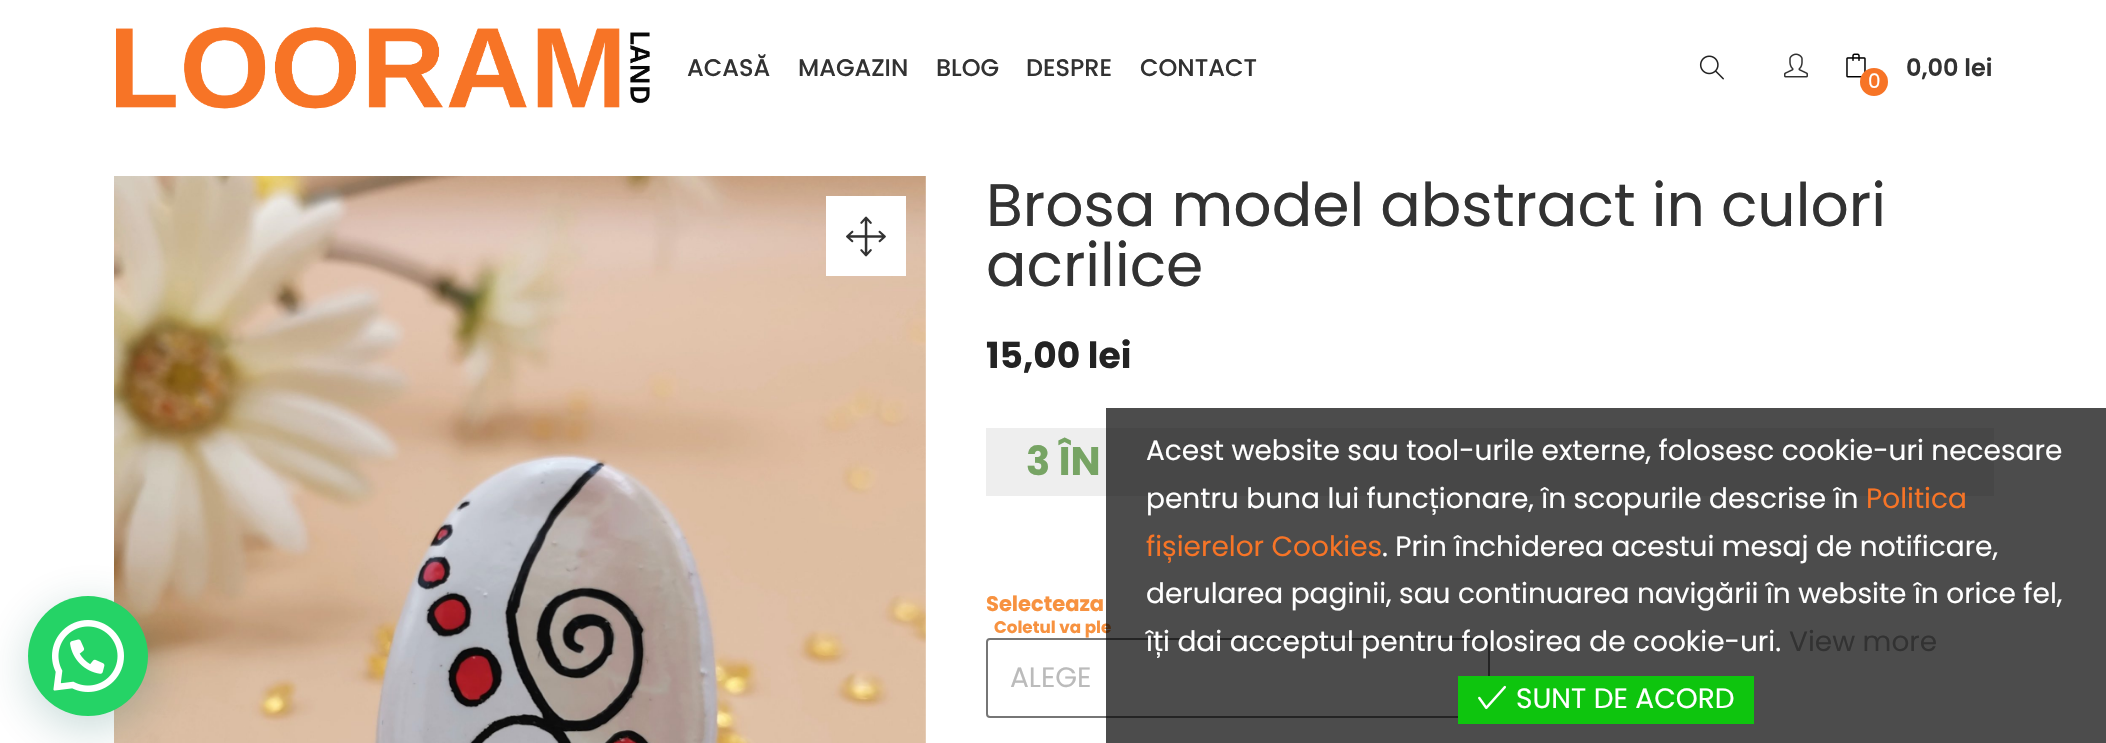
void draw(SkCanvas* canvas) {
    SkPaint paint;
    paint.setAntiAlias(true);
    canvas->clear(0xFFFFFFFF);
    canvas->drawImageRect(SkImages::DeferredFromEncodedData(SkData::MakeFromFileName("img1.png")), SkRect::MakeXYWH(116, 27, 534, 82), SkSamplingOptions());
    SkFont font1(fontMgr->matchFamilyStyle("Poppins", SkFontStyle(500, SkFontStyle::kNormal_Width, SkFontStyle::kUpright_Slant)), 24);
    font1.setSubpixel(true);
    paint.setColor(0xFF323232);
    canvas->drawString("ACASĂ", 687, 76, font1, paint);
    canvas->drawString("MAGAZIN", 798, 76, font1, paint);
    canvas->drawString("BLOG", 936, 76, font1, paint);
    canvas->drawString("DESPRE", 1026, 76, font1, paint);
    canvas->drawString("CONTACT", 1140, 76, font1, paint);
    canvas->drawImageRect(SkImages::DeferredFromEncodedData(SkData::MakeFromFileName("img2.png")), SkRect::MakeXYWH(1699, 55, 25, 25), SkSamplingOptions());
    canvas->drawImageRect(SkImages::DeferredFromEncodedData(SkData::MakeFromFileName("img3.png")), SkRect::MakeXYWH(1784, 53, 24, 25), SkSamplingOptions());
    canvas->drawImageRect(SkImages::DeferredFromEncodedData(SkData::MakeFromFileName("img4.png")), SkRect::MakeXYWH(1846, 53, 20, 25), SkSamplingOptions());
    paint.setColor(0xFFF77426);
    canvas->drawCircle(1874, 82, 14, paint);
    SkFont font2(fontMgr->matchFamilyStyle("Poppins", SkFontStyle::Normal()), 20);
    font2.setSubpixel(true);
    paint.setColor(0xFFFFFFFF);
    canvas->drawString("0", 1868, 88, font2, paint);
    SkFont font3(fontMgr->matchFamilyStyle("Poppins", SkFontStyle(600, SkFontStyle::kNormal_Width, SkFontStyle::kUpright_Slant)), 24);
    font3.setSubpixel(true);
    paint.setColor(0xFF323232);
    canvas->drawString("0,00 lei", 1906, 76, font3, paint);
    canvas->drawImageRect(SkImages::DeferredFromEncodedData(SkData::MakeFromFileName("img5.png")), SkRect::MakeXYWH(114, 176, 812, 567), SkSamplingOptions());
    paint.setColor(0xFFFFFFFF);
    canvas->drawRect(SkRect::MakeXYWH(826, 196, 80, 80), paint);
    canvas->drawImageRect(SkImages::DeferredFromEncodedData(SkData::MakeFromFileName("img6.png")), SkRect::MakeXYWH(846, 216, 40, 41), SkSamplingOptions());
    SkFont font4(fontMgr->matchFamilyStyle("Poppins", SkFontStyle::Normal()), 60);
    font4.setSubpixel(true);
    paint.setColor(0xFF323232);
    canvas->drawString("Brosa model abstract in culori", 986, 226, font4, paint);
    canvas->drawString("acrilice", 986, 286, font4, paint);
    SkFont font5(fontMgr->matchFamilyStyle("Poppins", SkFontStyle::Bold()), 36);
    font5.setSubpixel(true);
    paint.setColor(0xFF232323);
    canvas->drawString("15,00 lei", 986, 368, font5, paint);
    paint.setColor(0xFFEEEEEE);
    canvas->drawRect(SkRect::MakeXYWH(986, 428, 1008, 68), paint);
    SkFont font6(fontMgr->matchFamilyStyle("Poppins", SkFontStyle::Bold()), 40);
    font6.setSubpixel(true);
    paint.setColor(0xFF77A464);
    canvas->drawString("3 ÎN", 1026, 475, font6, paint);
    SkFont font7(fontMgr->matchFamilyStyle("Poppins", SkFontStyle::Bold()), 21);
    font7.setSubpixel(true);
    paint.setColor(0xFFF79240);
    canvas->drawString("Selecteaza", 986, 611, font7, paint);
    SkFont font8(fontMgr->matchFamilyStyle("Poppins", SkFontStyle::Bold()), 16.75f);
    font8.setSubpixel(true);
    canvas->drawString("Coletul va ple", 994, 633, font8, paint);
    paint.setStyle(SkPaint::kStroke_Style);
    paint.setStrokeWidth(2);
    paint.setColor(0xFF767676);
    canvas->drawRoundRect(SkRect::MakeXYWH(987, 639, 502, 78), 3, 3, paint);
    SkFont font9(fontMgr->matchFamilyStyle("Poppins", SkFontStyle::Normal()), 28);
    font9.setSubpixel(true);
    paint.setStyle(SkPaint::kFill_Style);
    paint.setColor(0xFFBBBBBB);
    canvas->drawString("ALEGE", 1010, 687, font9, paint);
    paint.setColor(0x3D075E54);
    paint.setMaskFilter(SkMaskFilter::MakeBlur(kNormal_SkBlurStyle, 24));
    canvas->drawRoundRect(SkRect::MakeXYWH(30, 608, 120, 120), 60, 60, paint);
    paint.setMaskFilter(nullptr);
    paint.setColor(0xFF25D366);
    canvas->drawCircle(88, 656, 60, paint);
    canvas->drawImageRect(SkImages::DeferredFromEncodedData(SkData::MakeFromFileName("img7.png")), SkRect::MakeXYWH(52, 620, 72, 72), SkSamplingOptions());
    paint.setColor(0xB3000000);
    canvas->drawRect(SkRect::MakeXYWH(1106, 408, 1000, 335), paint);
    paint.setColor(0xFFFFFFFF);
    canvas->drawString("Acest website sau tool-urile externe, folosesc cookie-uri necesare", 1146, 460, font9, paint);
    canvas->drawString("pentru buna lui funcționare, în scopurile descrise în", 1146, 508, font9, paint);
    paint.setColor(0xFFF77426);
    canvas->drawString("Politica", 1866, 508, font9, paint);
    canvas->drawString("fișierelor Cookies", 1146, 556, font9, paint);
    paint.setColor(0xFFFFFFFF);
    canvas->drawString(". Prin închiderea acestui mesaj de notificare,", 1382, 556, font9, paint);
    canvas->drawString("derularea paginii, sau continuarea navigării în website în orice fel,", 1146, 603, font9, paint);
    canvas->drawString("îți dai acceptul pentru folosirea de cookie-uri.", 1146, 651, font9, paint);
    paint.setColor(0xFF323232);
    canvas->drawString("View more", 1789, 651, font9, paint);
    paint.setColor(0xFF0EC50E);
    canvas->drawRect(SkRect::MakeXYWH(1458, 676, 296, 48), paint);
    canvas->drawImageRect(SkImages::DeferredFromEncodedData(SkData::MakeFromFileName("img8.png")), SkRect::MakeXYWH(1478, 685, 28, 25), SkSamplingOptions());
    paint.setColor(0xFFFFFFFF);
    canvas->drawString("SUNT DE ACORD", 1516, 708, font9, paint);
}
